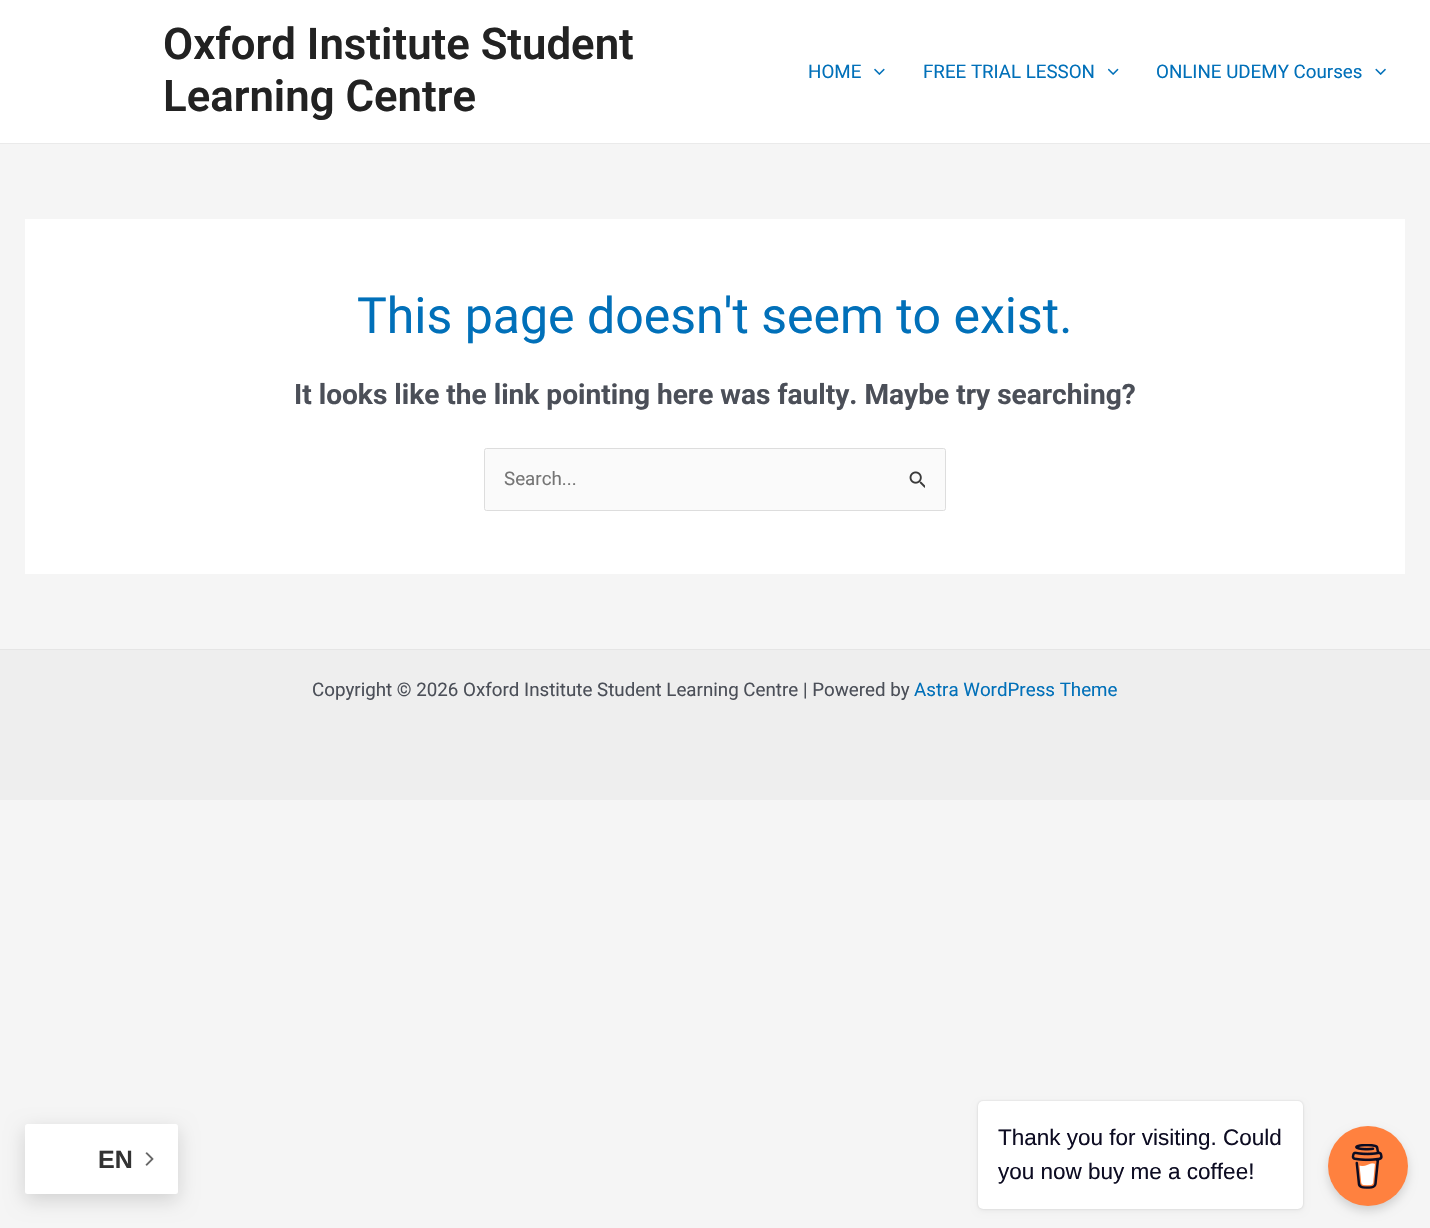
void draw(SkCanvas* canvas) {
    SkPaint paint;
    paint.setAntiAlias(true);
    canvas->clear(0xFFF5F5F5);
    paint.setColor(0xFFFFFFFF);
    canvas->drawRect(SkRect::MakeXYWH(0, 0, 1430, 143), paint);
    paint.setColor(0xFFEAEAEA);
    canvas->drawRect(SkRect::MakeXYWH(0, 143, 1430, 1), paint);
    SkFont font1(fontMgr->matchFamilyStyle("Roboto", SkFontStyle(600, SkFontStyle::kNormal_Width, SkFontStyle::kUpright_Slant)), 43.75f);
    font1.setSubpixel(true);
    paint.setColor(0xFF222222);
    canvas->drawString("Oxford Institute Student", 163, 59, font1, paint);
    canvas->drawString("Learning Centre", 163, 111, font1, paint);
    SkFont font2(fontMgr->matchFamilyStyle("Roboto", SkFontStyle::Normal()), 18.75f);
    font2.setSubpixel(true);
    paint.setColor(0xFF0170B9);
    canvas->drawString("HOME", 808, 78, font2, paint);
    canvas->drawImageRect(SkImages::DeferredFromEncodedData(SkData::MakeFromFileName("img1.png")), SkRect::MakeXYWH(874, 68, 11, 7), SkSamplingOptions());
    canvas->drawString("FREE TRIAL LESSON", 923, 78, font2, paint);
    canvas->drawImageRect(SkImages::DeferredFromEncodedData(SkData::MakeFromFileName("img2.png")), SkRect::MakeXYWH(1108, 68, 11, 7), SkSamplingOptions());
    canvas->drawString("ONLINE UDEMY Courses", 1156, 78, font2, paint);
    canvas->drawImageRect(SkImages::DeferredFromEncodedData(SkData::MakeFromFileName("img3.png")), SkRect::MakeXYWH(1375, 68, 11, 7), SkSamplingOptions());
    paint.setColor(0xFFFFFFFF);
    canvas->drawRect(SkRect::MakeXYWH(25, 219, 1380, 355), paint);
    SkFont font3(fontMgr->matchFamilyStyle("Roboto", SkFontStyle::Normal()), 50);
    font3.setSubpixel(true);
    paint.setColor(0xFF0170B9);
    canvas->drawString("This page doesn't seem to exist.", 357, 333, font3, paint);
    SkFont font4(fontMgr->matchFamilyStyle("Roboto", SkFontStyle::Bold()), 28.1f);
    font4.setSubpixel(true);
    paint.setColor(0xFF4B4F58);
    canvas->drawString("It looks like the link pointing here was faulty. Maybe try searching?", 294, 404, font4, paint);
    paint.setColor(0xFFFAFAFA);
    canvas->drawRoundRect(SkRect::MakeXYWH(484.5f, 448.5f, 461, 62), 2, 2, paint);
    paint.setStyle(SkPaint::kStroke_Style);
    paint.setStrokeWidth(1);
    paint.setColor(0xFFDDDDDD);
    canvas->drawRoundRect(SkRect::MakeXYWH(484.5f, 448.5f, 461, 62), 2, 2, paint);
    paint.setStyle(SkPaint::kFill_Style);
    paint.setColor(0xFF757575);
    canvas->drawString("Search...", 504, 485, font2, paint);
    canvas->drawImageRect(SkImages::DeferredFromEncodedData(SkData::MakeFromFileName("img4.png")), SkRect::MakeXYWH(909, 471, 16, 17), SkSamplingOptions());
    paint.setColor(0xFFEEEEEE);
    canvas->drawRect(SkRect::MakeXYWH(0, 650, 1430, 150), paint);
    paint.setColor(0xFFE5E5E5);
    canvas->drawRect(SkRect::MakeXYWH(0, 649, 1430, 1), paint);
    paint.setColor(0xFF4B4F58);
    canvas->drawString("Copyright © 2026 Oxford Institute Student Learning Centre | Powered by", 312, 696, font2, paint);
    paint.setColor(0xFF0170B9);
    canvas->drawString("Astra WordPress Theme", 914, 696, font2, paint);
    paint.setColor(0x26000000);
    paint.setMaskFilter(SkMaskFilter::MakeBlur(kNormal_SkBlurStyle, 9.5f));
    canvas->drawRoundRect(SkRect::MakeXYWH(25, 1130, 153, 70), 2.5f, 2.5f, paint);
    paint.setMaskFilter(nullptr);
    paint.setColor(0xFFFFFFFF);
    canvas->drawRoundRect(SkRect::MakeXYWH(25, 1124, 153, 70), 2.5f, 2.5f, paint);
    SkFont font5(fontMgr->matchFamilyStyle("Liberation Sans", SkFontStyle::Bold()), 25);
    font5.setSubpixel(true);
    paint.setColor(0xFF333333);
    canvas->drawString("EN", 98, 1168, font5, paint);
    canvas->drawImageRect(SkImages::DeferredFromEncodedData(SkData::MakeFromFileName("img5.png")), SkRect::MakeXYWH(145, 1152, 9, 14), SkSamplingOptions());
    paint.setColor(0x26000000);
    paint.setMaskFilter(SkMaskFilter::MakeBlur(kNormal_SkBlurStyle, 1));
    canvas->drawRoundRect(SkRect::MakeXYWH(978, 1101, 325, 108), 5, 5, paint);
    paint.setMaskFilter(nullptr);
    paint.setColor(0x0D000000);
    paint.setMaskFilter(SkMaskFilter::MakeBlur(kNormal_SkBlurStyle, 3));
    canvas->drawRoundRect(SkRect::MakeXYWH(978, 1104, 325, 107), 5, 5, paint);
    paint.setMaskFilter(nullptr);
    paint.setColor(0xFFFFFFFF);
    canvas->drawRoundRect(SkRect::MakeXYWH(978, 1101, 325, 108), 5, 5, paint);
    SkFont font6(fontMgr->matchFamilyStyle("Liberation Sans", SkFontStyle::Normal()), 22.5f);
    font6.setSubpixel(true);
    paint.setColor(0xFF0D0C22);
    canvas->drawString("Thank you for visiting. Could", 998, 1145, font6, paint);
    canvas->drawString("you now buy me a coffee!", 998, 1179, font6, paint);
    paint.setColor(0x26000000);
    paint.setMaskFilter(SkMaskFilter::MakeBlur(kNormal_SkBlurStyle, 5));
    canvas->drawRoundRect(SkRect::MakeXYWH(1328, 1131, 80, 80), 40, 40, paint);
    paint.setMaskFilter(nullptr);
    paint.setColor(0xFFFF813F);
    canvas->drawCircle(1368, 1166, 40, paint);
    canvas->drawImageRect(SkImages::DeferredFromEncodedData(SkData::MakeFromFileName("img6.png")), SkRect::MakeXYWH(1351, 1144, 32, 45), SkSamplingOptions());
}
